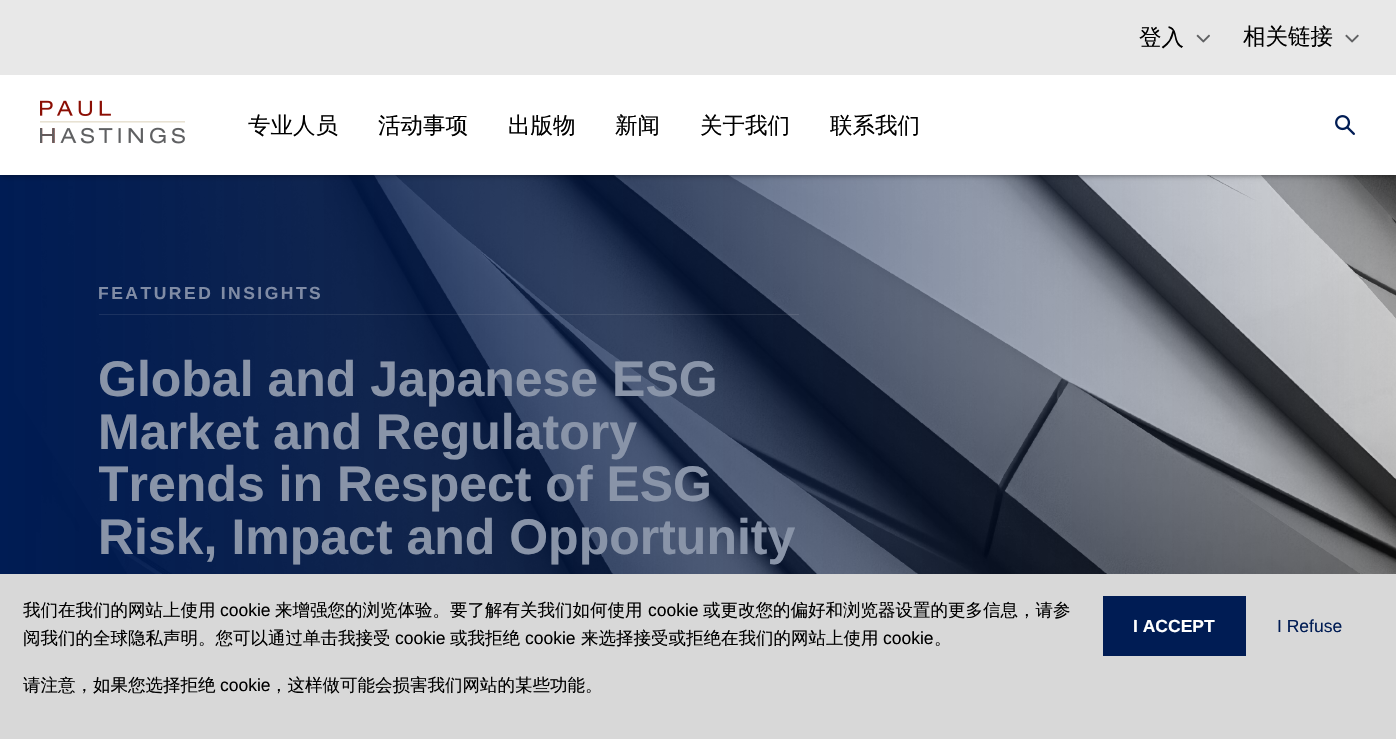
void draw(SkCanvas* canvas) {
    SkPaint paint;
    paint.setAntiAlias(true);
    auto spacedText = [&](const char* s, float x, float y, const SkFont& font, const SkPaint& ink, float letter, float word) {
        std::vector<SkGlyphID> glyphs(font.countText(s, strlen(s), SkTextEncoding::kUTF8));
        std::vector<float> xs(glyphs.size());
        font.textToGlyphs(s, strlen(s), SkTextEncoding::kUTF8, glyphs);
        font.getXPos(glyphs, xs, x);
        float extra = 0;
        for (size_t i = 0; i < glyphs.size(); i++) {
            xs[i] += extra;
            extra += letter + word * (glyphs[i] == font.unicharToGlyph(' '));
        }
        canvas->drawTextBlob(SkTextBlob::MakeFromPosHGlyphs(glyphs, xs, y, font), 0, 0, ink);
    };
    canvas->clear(0xFFFFFFFF);
    canvas->drawImageRect(SkImages::DeferredFromEncodedData(SkData::MakeFromFileName("img5.png")), SkRect::MakeXYWH(0, 175, 1396, 399), SkSamplingOptions());
    paint.setColor(0x80000000);
    paint.setMaskFilter(SkMaskFilter::MakeBlur(kNormal_SkBlurStyle, 3));
    canvas->drawRect(SkRect::MakeXYWH(0, 0, 1396, 175), paint);
    paint.setMaskFilter(nullptr);
    paint.setColor(0xFFFFFFFF);
    canvas->drawRect(SkRect::MakeXYWH(0, 75, 1396, 100), paint);
    paint.setColor(0xFFE8E8E8);
    canvas->drawRect(SkRect::MakeXYWH(0, 0, 1396, 75), paint);
    SkFont font1(fontMgr->matchFamilyStyle("WenQuanYi Zen Hei", SkFontStyle(500, SkFontStyle::kNormal_Width, SkFontStyle::kUpright_Slant)), 22.5f);
    font1.setSubpixel(true);
    paint.setColor(0xFF000000);
    canvas->drawString("登入", 1139, 45, font1, paint);
    canvas->drawImageRect(SkImages::DeferredFromEncodedData(SkData::MakeFromFileName("img1.png")), SkRect::MakeXYWH(1196, 34, 14, 9), SkSamplingOptions());
    canvas->drawString("相关链接", 1243, 44, font1, paint);
    canvas->drawImageRect(SkImages::DeferredFromEncodedData(SkData::MakeFromFileName("img2.png")), SkRect::MakeXYWH(1345, 34, 14, 9), SkSamplingOptions());
    canvas->drawImageRect(SkImages::DeferredFromEncodedData(SkData::MakeFromFileName("img3.png")), SkRect::MakeXYWH(40, 100, 145, 44), SkSamplingOptions());
    canvas->drawString("专业人员", 248, 133, font1, paint);
    canvas->drawString("活动事项", 378, 133, font1, paint);
    canvas->drawString("出版物", 508, 133, font1, paint);
    canvas->drawString("新闻", 615, 133, font1, paint);
    canvas->drawString("关于我们", 700, 133, font1, paint);
    canvas->drawString("联系我们", 830, 133, font1, paint);
    canvas->drawImageRect(SkImages::DeferredFromEncodedData(SkData::MakeFromFileName("img4.png")), SkRect::MakeXYWH(1335, 115, 20, 20), SkSamplingOptions());
    paint.setColor(0x1ADDE0E3);
    canvas->drawRect(SkRect::MakeXYWH(99, 314, 700, 1), paint);
    SkFont font2(fontMgr->matchFamilyStyle("Liberation Sans", SkFontStyle::Bold()), 17.5f);
    font2.setSubpixel(true);
    paint.setColor(0xFF808CA5);
    spacedText("FEATURED INSIGHTS", 98, 299, font2, paint, 2.5f, 0);
    SkFont font3(fontMgr->matchFamilyStyle("Liberation Sans", SkFontStyle::Bold()), 50);
    font3.setSubpixel(true);
    paint.setColor(0xFF8994A8);
    canvas->drawString("Global and Japanese ESG", 98, 396, font3, paint);
    canvas->drawString("Market and Regulatory", 98, 449, font3, paint);
    canvas->save();
    canvas->clipRect(SkRect::MakeXYWH(99, 214, 1200, 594));
    canvas->drawString("Trends in Respect of ESG", 98, 501, font3, paint);
    canvas->restore();
    canvas->drawString("Risk, Impact and Opportunity", 98, 554, font3, paint);
    paint.setColor(0xFFD8D8D8);
    canvas->drawRect(SkRect::MakeXYWH(0, 574, 1396, 165), paint);
    SkFont font4(fontMgr->matchFamilyStyle("WenQuanYi Zen Hei", SkFontStyle(500, SkFontStyle::kNormal_Width, SkFontStyle::kUpright_Slant)), 17.5f);
    font4.setSubpixel(true);
    paint.setColor(0xFF000000);
    canvas->drawString("我们在我们的网站上使用", 23, 616, font4, paint);
    SkFont font5(fontMgr->matchFamilyStyle("Liberation Sans", SkFontStyle::Normal()), 17.5f);
    font5.setSubpixel(true);
    canvas->drawString("cookie", 220, 616, font5, paint);
    canvas->drawString("来增强您的浏览体验。要了解有关我们如何使用", 275, 616, font4, paint);
    canvas->drawString("cookie", 648, 616, font5, paint);
    canvas->drawString("或更改您的偏好和浏览器设置的更多信息，请参", 703, 616, font4, paint);
    canvas->drawString("阅我们的全球隐私声明。您可以通过单击我接受", 23, 644, font4, paint);
    canvas->drawString("cookie", 395, 644, font5, paint);
    canvas->drawString("或我拒绝", 450, 644, font4, paint);
    canvas->drawString("cookie", 525, 644, font5, paint);
    canvas->drawString("来选择接受或拒绝在我们的网站上使用", 581, 644, font4, paint);
    canvas->drawString("cookie", 883, 644, font5, paint);
    canvas->drawString("。", 934, 644, font4, paint);
    canvas->drawString("请注意，如果您选择拒绝", 23, 691, font4, paint);
    canvas->drawString("cookie", 220, 691, font5, paint);
    canvas->drawString("，这样做可能会损害我们网站的某些功能。", 270, 691, font4, paint);
    paint.setColor(0xFF001C54);
    canvas->drawRect(SkRect::MakeXYWH(1103, 596, 143, 60), paint);
    paint.setColor(0xFFFFFFFF);
    canvas->drawString("I ACCEPT", 1133, 632, font2, paint);
    paint.setColor(0xFF001C54);
    canvas->drawString("I Refuse", 1277, 632, font5, paint);
}
